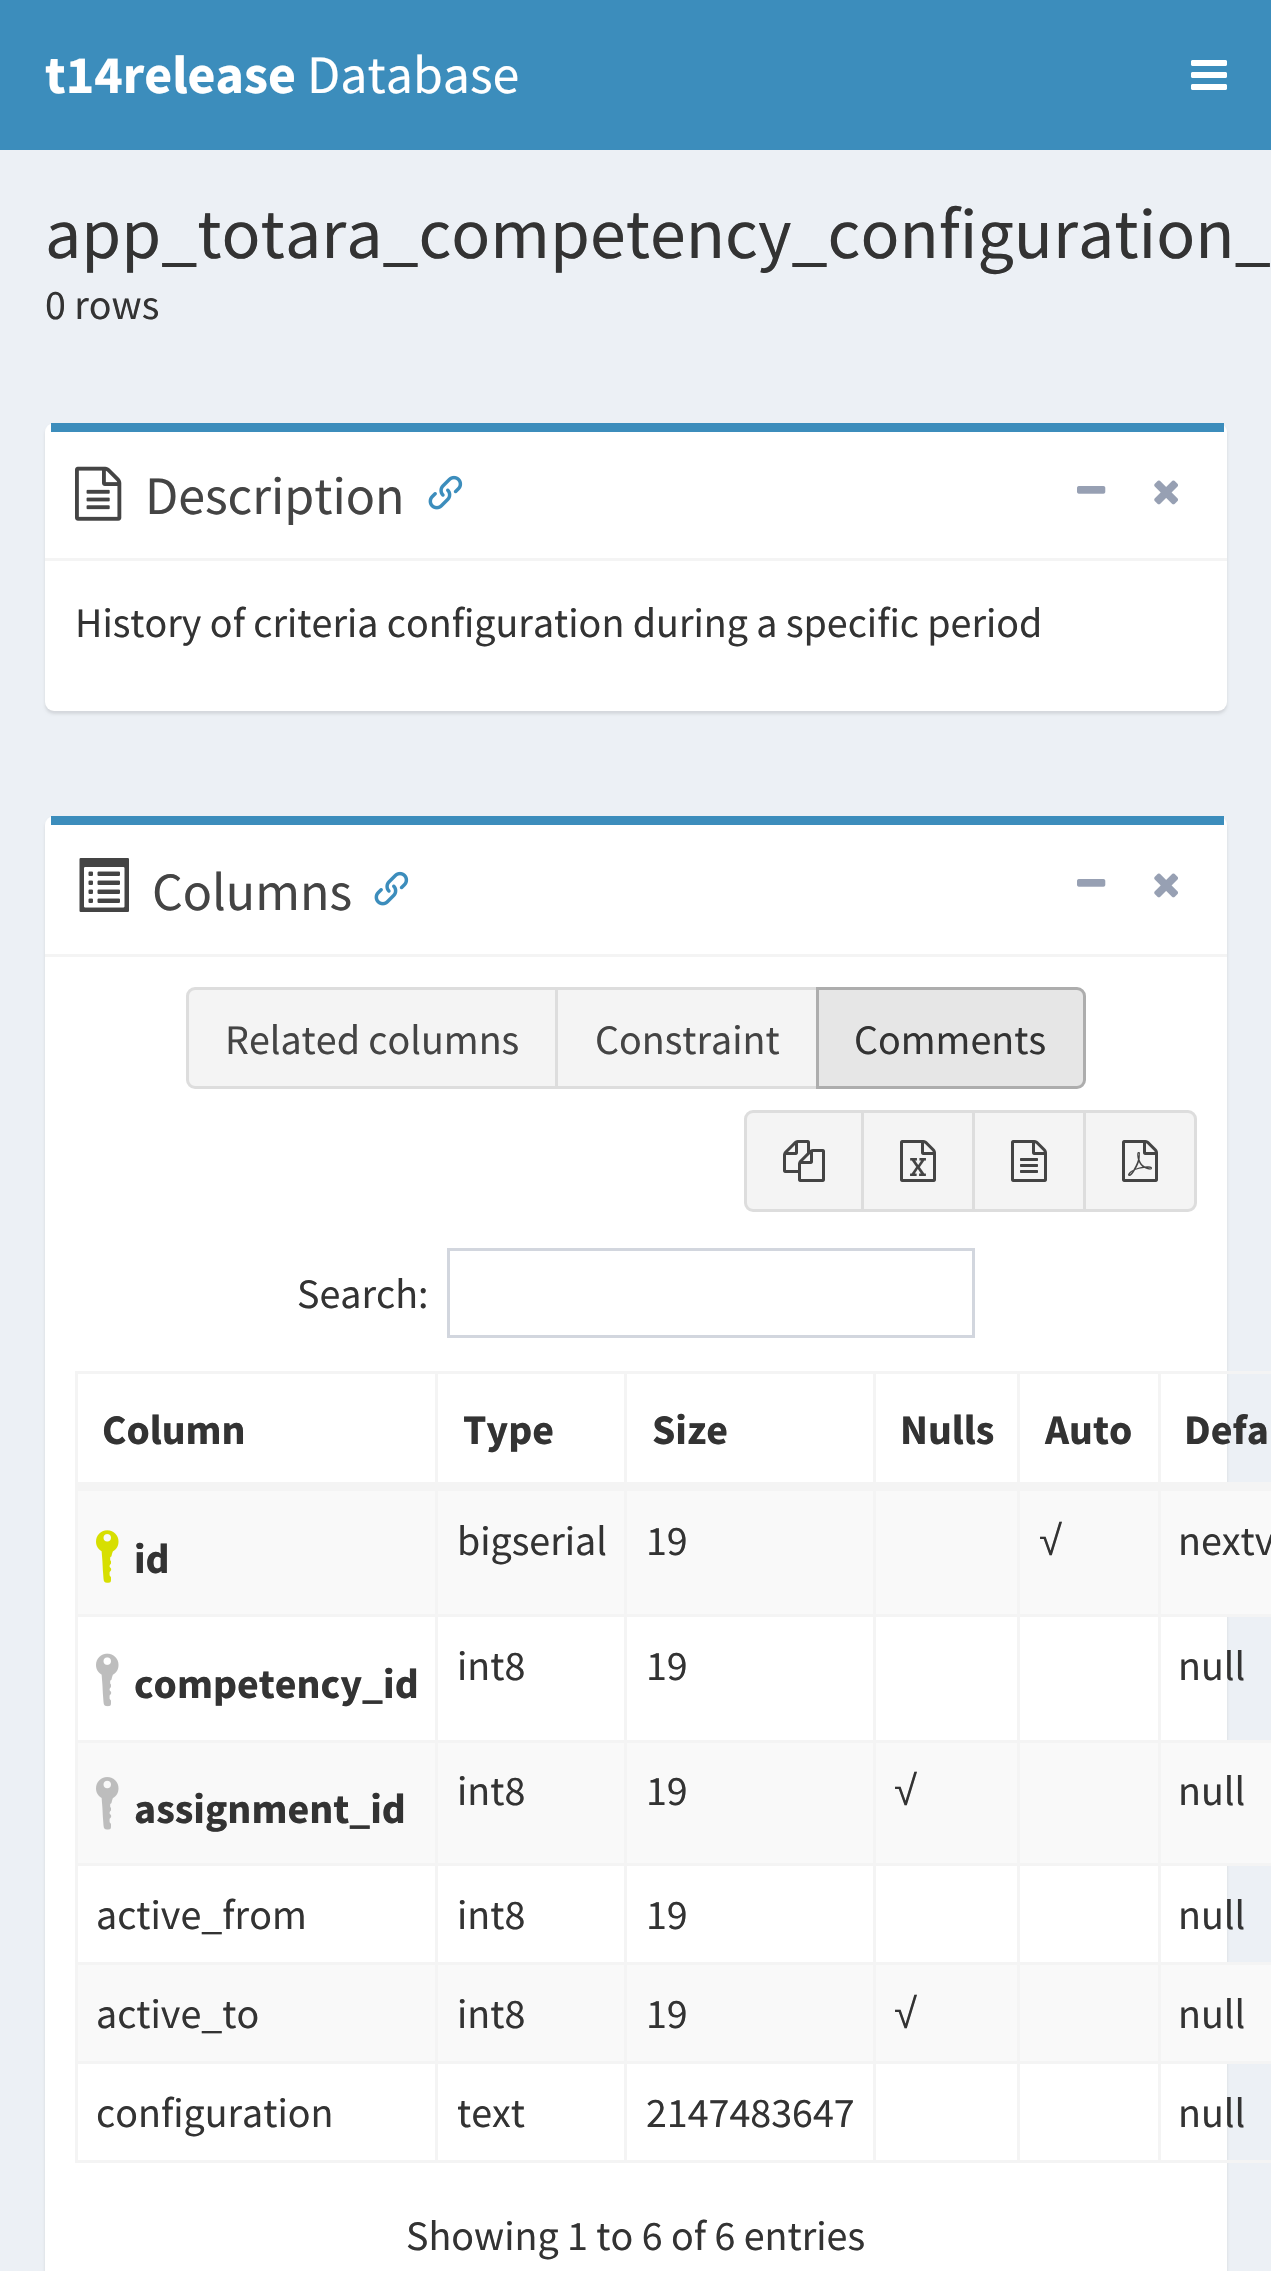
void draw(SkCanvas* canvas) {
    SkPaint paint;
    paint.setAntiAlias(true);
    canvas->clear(0xFFECF0F5);
    paint.setColor(0xFF3C8DBC);
    canvas->drawRect(SkRect::MakeXYWH(0, 0, 1271, 150), paint);
    SkFont font1(fontMgr->matchFamilyStyle("Source Sans Pro", SkFontStyle::Bold()), 54);
    font1.setSubpixel(true);
    paint.setColor(0xFFFFFFFF);
    canvas->drawString("t14release", 45, 93, font1, paint);
    SkFont font2(fontMgr->matchFamilyStyle("Source Sans Pro", SkFontStyle::Normal()), 54);
    font2.setSubpixel(true);
    canvas->drawString("Database", 307, 93, font2, paint);
    canvas->drawImageRect(SkImages::DeferredFromEncodedData(SkData::MakeFromFileName("img1.png")), SkRect::MakeXYWH(1191, 60, 36, 30), SkSamplingOptions());
    SkFont font3(fontMgr->matchFamilyStyle("Source Sans Pro", SkFontStyle::Normal()), 72);
    font3.setSubpixel(true);
    paint.setColor(0xFF333333);
    canvas->drawString("app_totara_competency_configuration_", 45, 258, font3, paint);
    SkFont font4(fontMgr->matchFamilyStyle("Source Sans Pro", SkFontStyle::Normal()), 42);
    font4.setSubpixel(true);
    canvas->drawString("0 rows", 45, 319, font4, paint);
    paint.setColor(0x1A000000);
    paint.setMaskFilter(SkMaskFilter::MakeBlur(kNormal_SkBlurStyle, 1.5f));
    canvas->drawRoundRect(SkRect::MakeXYWH(45, 426, 1182, 288), 9, 9, paint);
    paint.setMaskFilter(nullptr);
    paint.setColor(0xFFFFFFFF);
    canvas->drawRoundRect(SkRect::MakeXYWH(45, 423, 1182, 288), 9, 9, paint);
    paint.setColor(0xFF3C8DBC);
    canvas->drawRect(SkRect::MakeXYWH(51, 423, 1173, 9), paint);
    paint.setColor(0xFFF4F4F4);
    canvas->drawRect(SkRect::MakeXYWH(45, 558, 1182, 3), paint);
    canvas->drawImageRect(SkImages::DeferredFromEncodedData(SkData::MakeFromFileName("img2.png")), SkRect::MakeXYWH(75, 466, 47, 55), SkSamplingOptions());
    paint.setColor(0xFF444444);
    canvas->drawString("Description", 145, 514, font2, paint);
    canvas->drawImageRect(SkImages::DeferredFromEncodedData(SkData::MakeFromFileName("img3.png")), SkRect::MakeXYWH(428, 475, 35, 35), SkSamplingOptions());
    canvas->drawImageRect(SkImages::DeferredFromEncodedData(SkData::MakeFromFileName("img4.png")), SkRect::MakeXYWH(1077, 486, 29, 8), SkSamplingOptions());
    canvas->drawImageRect(SkImages::DeferredFromEncodedData(SkData::MakeFromFileName("img5.png")), SkRect::MakeXYWH(1154, 480, 24, 25), SkSamplingOptions());
    paint.setColor(0xFF333333);
    canvas->drawString("History of criteria configuration during a specific period", 75, 637, font4, paint);
    paint.setColor(0x1A000000);
    paint.setMaskFilter(SkMaskFilter::MakeBlur(kNormal_SkBlurStyle, 1.5f));
    canvas->drawRoundRect(SkRect::MakeXYWH(45, 819, 1182, 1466), 9, 9, paint);
    paint.setMaskFilter(nullptr);
    paint.setColor(0xFFFFFFFF);
    canvas->drawRoundRect(SkRect::MakeXYWH(45, 816, 1182, 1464), 9, 9, paint);
    paint.setColor(0xFF3C8DBC);
    canvas->drawRect(SkRect::MakeXYWH(51, 816, 1173, 9), paint);
    paint.setColor(0xFFF4F4F4);
    canvas->drawRect(SkRect::MakeXYWH(45, 954, 1182, 3), paint);
    canvas->drawImageRect(SkImages::DeferredFromEncodedData(SkData::MakeFromFileName("img6.png")), SkRect::MakeXYWH(79, 858, 50, 54), SkSamplingOptions());
    paint.setColor(0xFF444444);
    canvas->drawString("Columns", 152, 910, font2, paint);
    canvas->drawImageRect(SkImages::DeferredFromEncodedData(SkData::MakeFromFileName("img3.png")), SkRect::MakeXYWH(374, 871, 35, 35), SkSamplingOptions());
    canvas->drawImageRect(SkImages::DeferredFromEncodedData(SkData::MakeFromFileName("img4.png")), SkRect::MakeXYWH(1077, 879, 29, 8), SkSamplingOptions());
    canvas->drawImageRect(SkImages::DeferredFromEncodedData(SkData::MakeFromFileName("img5.png")), SkRect::MakeXYWH(1154, 873, 24, 25), SkSamplingOptions());
    paint.setColor(0xFFF4F4F4);
    canvas->drawPath(SkPathBuilder().moveTo(195, 988.5f).lineTo(556.5f, 988.5f).lineTo(556.5f, 1087.5f).lineTo(195, 1087.5f).cubicTo(191, 1087.5f, 187.5f, 1084, 187.5f, 1080).lineTo(187.5f, 996).cubicTo(187.5f, 992, 191, 988.5f, 195, 988.5f).close().detach(), paint);
    paint.setStyle(SkPaint::kStroke_Style);
    paint.setStrokeWidth(3);
    paint.setColor(0xFFDDDDDD);
    canvas->drawPath(SkPathBuilder().moveTo(195, 988.5f).lineTo(556.5f, 988.5f).lineTo(556.5f, 1087.5f).lineTo(195, 1087.5f).cubicTo(191, 1087.5f, 187.5f, 1084, 187.5f, 1080).lineTo(187.5f, 996).cubicTo(187.5f, 992, 191, 988.5f, 195, 988.5f).close().detach(), paint);
    paint.setStyle(SkPaint::kFill_Style);
    paint.setColor(0xFF444444);
    canvas->drawString("Related columns", 225, 1054, font4, paint);
    paint.setColor(0xFFF4F4F4);
    canvas->drawRect(SkRect::MakeXYWH(556.5f, 988.5f, 261, 99), paint);
    paint.setStyle(SkPaint::kStroke_Style);
    paint.setColor(0xFFDDDDDD);
    canvas->drawRect(SkRect::MakeXYWH(556.5f, 988.5f, 261, 99), paint);
    paint.setStyle(SkPaint::kFill_Style);
    paint.setColor(0xFF444444);
    canvas->drawString("Constraint", 595, 1054, font4, paint);
    paint.setColor(0xFFE6E6E6);
    canvas->drawPath(SkPathBuilder().moveTo(817.5f, 988.5f).lineTo(1077, 988.5f).cubicTo(1081, 988.5f, 1084.5f, 992, 1084.5f, 996).lineTo(1084.5f, 1080).cubicTo(1084.5f, 1084, 1081, 1087.5f, 1077, 1087.5f).lineTo(817.5f, 1087.5f).close().detach(), paint);
    paint.setStyle(SkPaint::kStroke_Style);
    paint.setColor(0xFFADADAD);
    canvas->drawPath(SkPathBuilder().moveTo(817.5f, 988.5f).lineTo(1077, 988.5f).cubicTo(1081, 988.5f, 1084.5f, 992, 1084.5f, 996).lineTo(1084.5f, 1080).cubicTo(1084.5f, 1084, 1081, 1087.5f, 1077, 1087.5f).lineTo(817.5f, 1087.5f).close().detach(), paint);
    paint.setStyle(SkPaint::kFill_Style);
    paint.setColor(0xFF333333);
    canvas->drawString("Comments", 854, 1054, font4, paint);
    paint.setColor(0xFFF4F4F4);
    canvas->drawPath(SkPathBuilder().moveTo(753, 1111.5f).lineTo(862.5f, 1111.5f).lineTo(862.5f, 1210.5f).lineTo(753, 1210.5f).cubicTo(749, 1210.5f, 745.5f, 1207, 745.5f, 1203).lineTo(745.5f, 1119).cubicTo(745.5f, 1115, 749, 1111.5f, 753, 1111.5f).close().detach(), paint);
    paint.setStyle(SkPaint::kStroke_Style);
    paint.setColor(0xFFDDDDDD);
    canvas->drawPath(SkPathBuilder().moveTo(753, 1111.5f).lineTo(862.5f, 1111.5f).lineTo(862.5f, 1210.5f).lineTo(753, 1210.5f).cubicTo(749, 1210.5f, 745.5f, 1207, 745.5f, 1203).lineTo(745.5f, 1119).cubicTo(745.5f, 1115, 749, 1111.5f, 753, 1111.5f).close().detach(), paint);
    canvas->drawImageRect(SkImages::DeferredFromEncodedData(SkData::MakeFromFileName("img7.png")), SkRect::MakeXYWH(783, 1140, 42, 42), SkSamplingOptions());
    paint.setStyle(SkPaint::kFill_Style);
    paint.setColor(0xFFF4F4F4);
    canvas->drawRect(SkRect::MakeXYWH(862.5f, 1111.5f, 111, 99), paint);
    paint.setStyle(SkPaint::kStroke_Style);
    paint.setColor(0xFFDDDDDD);
    canvas->drawRect(SkRect::MakeXYWH(862.5f, 1111.5f, 111, 99), paint);
    canvas->drawImageRect(SkImages::DeferredFromEncodedData(SkData::MakeFromFileName("img8.png")), SkRect::MakeXYWH(900, 1140, 36, 42), SkSamplingOptions());
    paint.setStyle(SkPaint::kFill_Style);
    paint.setColor(0xFFF4F4F4);
    canvas->drawRect(SkRect::MakeXYWH(973.5f, 1111.5f, 111, 99), paint);
    paint.setStyle(SkPaint::kStroke_Style);
    paint.setColor(0xFFDDDDDD);
    canvas->drawRect(SkRect::MakeXYWH(973.5f, 1111.5f, 111, 99), paint);
    canvas->drawImageRect(SkImages::DeferredFromEncodedData(SkData::MakeFromFileName("img9.png")), SkRect::MakeXYWH(1011, 1140, 36, 42), SkSamplingOptions());
    paint.setStyle(SkPaint::kFill_Style);
    paint.setColor(0xFFF4F4F4);
    canvas->drawPath(SkPathBuilder().moveTo(1084.5f, 1111.5f).lineTo(1188, 1111.5f).cubicTo(1192, 1111.5f, 1195.5f, 1115, 1195.5f, 1119).lineTo(1195.5f, 1203).cubicTo(1195.5f, 1207, 1192, 1210.5f, 1188, 1210.5f).lineTo(1084.5f, 1210.5f).close().detach(), paint);
    paint.setStyle(SkPaint::kStroke_Style);
    paint.setColor(0xFFDDDDDD);
    canvas->drawPath(SkPathBuilder().moveTo(1084.5f, 1111.5f).lineTo(1188, 1111.5f).cubicTo(1192, 1111.5f, 1195.5f, 1115, 1195.5f, 1119).lineTo(1195.5f, 1203).cubicTo(1195.5f, 1207, 1192, 1210.5f, 1188, 1210.5f).lineTo(1084.5f, 1210.5f).close().detach(), paint);
    canvas->drawImageRect(SkImages::DeferredFromEncodedData(SkData::MakeFromFileName("img10.png")), SkRect::MakeXYWH(1122, 1140, 36, 42), SkSamplingOptions());
    paint.setStyle(SkPaint::kFill_Style);
    paint.setColor(0xFF333333);
    canvas->drawString("Search:", 297, 1308, font4, paint);
    paint.setStyle(SkPaint::kStroke_Style);
    paint.setColor(0xFFD2D6DE);
    canvas->drawRect(SkRect::MakeXYWH(448.5f, 1249.5f, 525, 87), paint);
    paint.setColor(0xFFF4F4F4);
    canvas->drawRect(SkRect::MakeXYWH(76.5f, 1372.5f, 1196, 789), paint);
    paint.setStyle(SkPaint::kFill_Style);
    canvas->drawRect(SkRect::MakeXYWH(435, 1374, 3, 114), paint);
    canvas->drawRect(SkRect::MakeXYWH(78, 1482, 360, 9), paint);
    SkFont font5(fontMgr->matchFamilyStyle("Source Sans Pro", SkFontStyle::Bold()), 42);
    font5.setSubpixel(true);
    paint.setColor(0xFF333333);
    canvas->drawString("Column", 102, 1444, font5, paint);
    paint.setColor(0xFFF4F4F4);
    canvas->drawRect(SkRect::MakeXYWH(624, 1374, 3, 114), paint);
    canvas->drawRect(SkRect::MakeXYWH(438, 1482, 189, 9), paint);
    paint.setColor(0xFF333333);
    canvas->drawString("Type", 463, 1444, font5, paint);
    paint.setColor(0xFFF4F4F4);
    canvas->drawRect(SkRect::MakeXYWH(873, 1374, 3, 114), paint);
    canvas->drawRect(SkRect::MakeXYWH(627, 1482, 249, 9), paint);
    paint.setColor(0xFF333333);
    canvas->drawString("Size", 652, 1444, font5, paint);
    paint.setColor(0xFFF4F4F4);
    canvas->drawRect(SkRect::MakeXYWH(1017, 1374, 3, 114), paint);
    canvas->drawRect(SkRect::MakeXYWH(876, 1482, 144, 9), paint);
    paint.setColor(0xFF333333);
    canvas->drawString("Nulls", 900, 1444, font5, paint);
    paint.setColor(0xFFF4F4F4);
    canvas->drawRect(SkRect::MakeXYWH(1158, 1374, 3, 114), paint);
    canvas->drawRect(SkRect::MakeXYWH(1020, 1482, 251, 6), paint);
    paint.setColor(0xFF333333);
    canvas->drawString("Auto", 1045, 1444, font5, paint);
    canvas->drawString("Defa", 1184, 1444, font5, paint);
    paint.setColor(0xFFF9F9F9);
    canvas->drawRect(SkRect::MakeXYWH(78, 1491, 1193, 123), paint);
    paint.setColor(0xFFF4F4F4);
    canvas->drawRect(SkRect::MakeXYWH(435, 1488, 3, 126), paint);
    canvas->drawImageRect(SkImages::DeferredFromEncodedData(SkData::MakeFromFileName("img11.png")), SkRect::MakeXYWH(96, 1530, 23, 53), SkSamplingOptions());
    paint.setColor(0xFF333333);
    canvas->drawString("id", 134, 1573, font5, paint);
    paint.setColor(0xFFF4F4F4);
    canvas->drawRect(SkRect::MakeXYWH(624, 1488, 3, 126), paint);
    paint.setColor(0xFF333333);
    canvas->drawString("bigserial", 457, 1555, font4, paint);
    paint.setColor(0xFFF4F4F4);
    canvas->drawRect(SkRect::MakeXYWH(873, 1488, 3, 126), paint);
    paint.setColor(0xFF333333);
    canvas->drawString("19", 646, 1555, font4, paint);
    paint.setColor(0xFFF4F4F4);
    canvas->drawRect(SkRect::MakeXYWH(1017, 1488, 3, 126), paint);
    canvas->drawRect(SkRect::MakeXYWH(1020, 1488, 251, 3), paint);
    canvas->drawRect(SkRect::MakeXYWH(1158, 1488, 3, 126), paint);
    SkFont font6(fontMgr->matchFamilyStyle("Liberation Sans", SkFontStyle::Normal()), 42);
    font6.setSubpixel(true);
    paint.setColor(0xFF333333);
    canvas->drawString("√", 1039, 1555, font6, paint);
    canvas->drawString("nextv", 1178, 1555, font4, paint);
    paint.setColor(0xFFF4F4F4);
    canvas->drawRect(SkRect::MakeXYWH(78, 1614, 1193, 3), paint);
    canvas->drawRect(SkRect::MakeXYWH(435, 1614, 3, 126), paint);
    canvas->drawImageRect(SkImages::DeferredFromEncodedData(SkData::MakeFromFileName("img12.png")), SkRect::MakeXYWH(96, 1653, 23, 54), SkSamplingOptions());
    paint.setColor(0xFF333333);
    canvas->drawString("competency_id", 134, 1698, font5, paint);
    paint.setColor(0xFFF4F4F4);
    canvas->drawRect(SkRect::MakeXYWH(624, 1614, 3, 126), paint);
    paint.setColor(0xFF333333);
    canvas->drawString("int8", 457, 1680, font4, paint);
    paint.setColor(0xFFF4F4F4);
    canvas->drawRect(SkRect::MakeXYWH(873, 1614, 3, 126), paint);
    paint.setColor(0xFF333333);
    canvas->drawString("19", 646, 1680, font4, paint);
    paint.setColor(0xFFF4F4F4);
    canvas->drawRect(SkRect::MakeXYWH(1017, 1614, 3, 126), paint);
    canvas->drawRect(SkRect::MakeXYWH(1158, 1614, 3, 126), paint);
    paint.setColor(0xFF333333);
    canvas->drawString("null", 1178, 1680, font4, paint);
    paint.setColor(0xFFF9F9F9);
    canvas->drawRect(SkRect::MakeXYWH(78, 1743, 1193, 120), paint);
    paint.setColor(0xFFF4F4F4);
    canvas->drawRect(SkRect::MakeXYWH(78, 1740, 1193, 3), paint);
    canvas->drawRect(SkRect::MakeXYWH(435, 1740, 3, 123), paint);
    canvas->drawImageRect(SkImages::DeferredFromEncodedData(SkData::MakeFromFileName("img13.png")), SkRect::MakeXYWH(96, 1777, 23, 53), SkSamplingOptions());
    paint.setColor(0xFF333333);
    canvas->drawString("assignment_id", 134, 1823, font5, paint);
    paint.setColor(0xFFF4F4F4);
    canvas->drawRect(SkRect::MakeXYWH(624, 1740, 3, 123), paint);
    paint.setColor(0xFF333333);
    canvas->drawString("int8", 457, 1805, font4, paint);
    paint.setColor(0xFFF4F4F4);
    canvas->drawRect(SkRect::MakeXYWH(873, 1740, 3, 123), paint);
    paint.setColor(0xFF333333);
    canvas->drawString("19", 646, 1805, font4, paint);
    paint.setColor(0xFFF4F4F4);
    canvas->drawRect(SkRect::MakeXYWH(1017, 1740, 3, 123), paint);
    paint.setColor(0xFF333333);
    canvas->drawString("√", 894, 1805, font6, paint);
    paint.setColor(0xFFF4F4F4);
    canvas->drawRect(SkRect::MakeXYWH(1158, 1740, 3, 123), paint);
    paint.setColor(0xFF333333);
    canvas->drawString("null", 1178, 1805, font4, paint);
    paint.setColor(0xFFF4F4F4);
    canvas->drawRect(SkRect::MakeXYWH(78, 1863, 1193, 3), paint);
    canvas->drawRect(SkRect::MakeXYWH(435, 1863, 3, 99), paint);
    paint.setColor(0xFF333333);
    canvas->drawString("active_from", 96, 1929, font4, paint);
    paint.setColor(0xFFF4F4F4);
    canvas->drawRect(SkRect::MakeXYWH(624, 1863, 3, 99), paint);
    paint.setColor(0xFF333333);
    canvas->drawString("int8", 457, 1929, font4, paint);
    paint.setColor(0xFFF4F4F4);
    canvas->drawRect(SkRect::MakeXYWH(873, 1863, 3, 99), paint);
    paint.setColor(0xFF333333);
    canvas->drawString("19", 646, 1929, font4, paint);
    paint.setColor(0xFFF4F4F4);
    canvas->drawRect(SkRect::MakeXYWH(1017, 1863, 3, 99), paint);
    canvas->drawRect(SkRect::MakeXYWH(1158, 1863, 3, 99), paint);
    paint.setColor(0xFF333333);
    canvas->drawString("null", 1178, 1929, font4, paint);
    paint.setColor(0xFFF9F9F9);
    canvas->drawRect(SkRect::MakeXYWH(78, 1965, 1193, 96), paint);
    paint.setColor(0xFFF4F4F4);
    canvas->drawRect(SkRect::MakeXYWH(78, 1962, 1193, 3), paint);
    canvas->drawRect(SkRect::MakeXYWH(435, 1962, 3, 99), paint);
    paint.setColor(0xFF333333);
    canvas->drawString("active_to", 96, 2028, font4, paint);
    paint.setColor(0xFFF4F4F4);
    canvas->drawRect(SkRect::MakeXYWH(624, 1962, 3, 99), paint);
    paint.setColor(0xFF333333);
    canvas->drawString("int8", 457, 2028, font4, paint);
    paint.setColor(0xFFF4F4F4);
    canvas->drawRect(SkRect::MakeXYWH(873, 1962, 3, 99), paint);
    paint.setColor(0xFF333333);
    canvas->drawString("19", 646, 2028, font4, paint);
    paint.setColor(0xFFF4F4F4);
    canvas->drawRect(SkRect::MakeXYWH(1017, 1962, 3, 99), paint);
    paint.setColor(0xFF333333);
    canvas->drawString("√", 894, 2028, font6, paint);
    paint.setColor(0xFFF4F4F4);
    canvas->drawRect(SkRect::MakeXYWH(1158, 1962, 3, 99), paint);
    paint.setColor(0xFF333333);
    canvas->drawString("null", 1178, 2028, font4, paint);
    paint.setColor(0xFFF4F4F4);
    canvas->drawRect(SkRect::MakeXYWH(78, 2061, 1193, 3), paint);
    canvas->drawRect(SkRect::MakeXYWH(435, 2061, 3, 99), paint);
    paint.setColor(0xFF333333);
    canvas->drawString("configuration", 96, 2127, font4, paint);
    paint.setColor(0xFFF4F4F4);
    canvas->drawRect(SkRect::MakeXYWH(624, 2061, 3, 99), paint);
    paint.setColor(0xFF333333);
    canvas->drawString("text", 457, 2127, font4, paint);
    paint.setColor(0xFFF4F4F4);
    canvas->drawRect(SkRect::MakeXYWH(873, 2061, 3, 99), paint);
    paint.setColor(0xFF333333);
    canvas->drawString("2147483647", 646, 2127, font4, paint);
    paint.setColor(0xFFF4F4F4);
    canvas->drawRect(SkRect::MakeXYWH(1017, 2061, 3, 99), paint);
    canvas->drawRect(SkRect::MakeXYWH(1158, 2061, 3, 99), paint);
    paint.setColor(0xFF333333);
    canvas->drawString("null", 1178, 2127, font4, paint);
    canvas->drawString("Showing 1 to 6 of 6 entries", 406, 2250, font4, paint);
}
